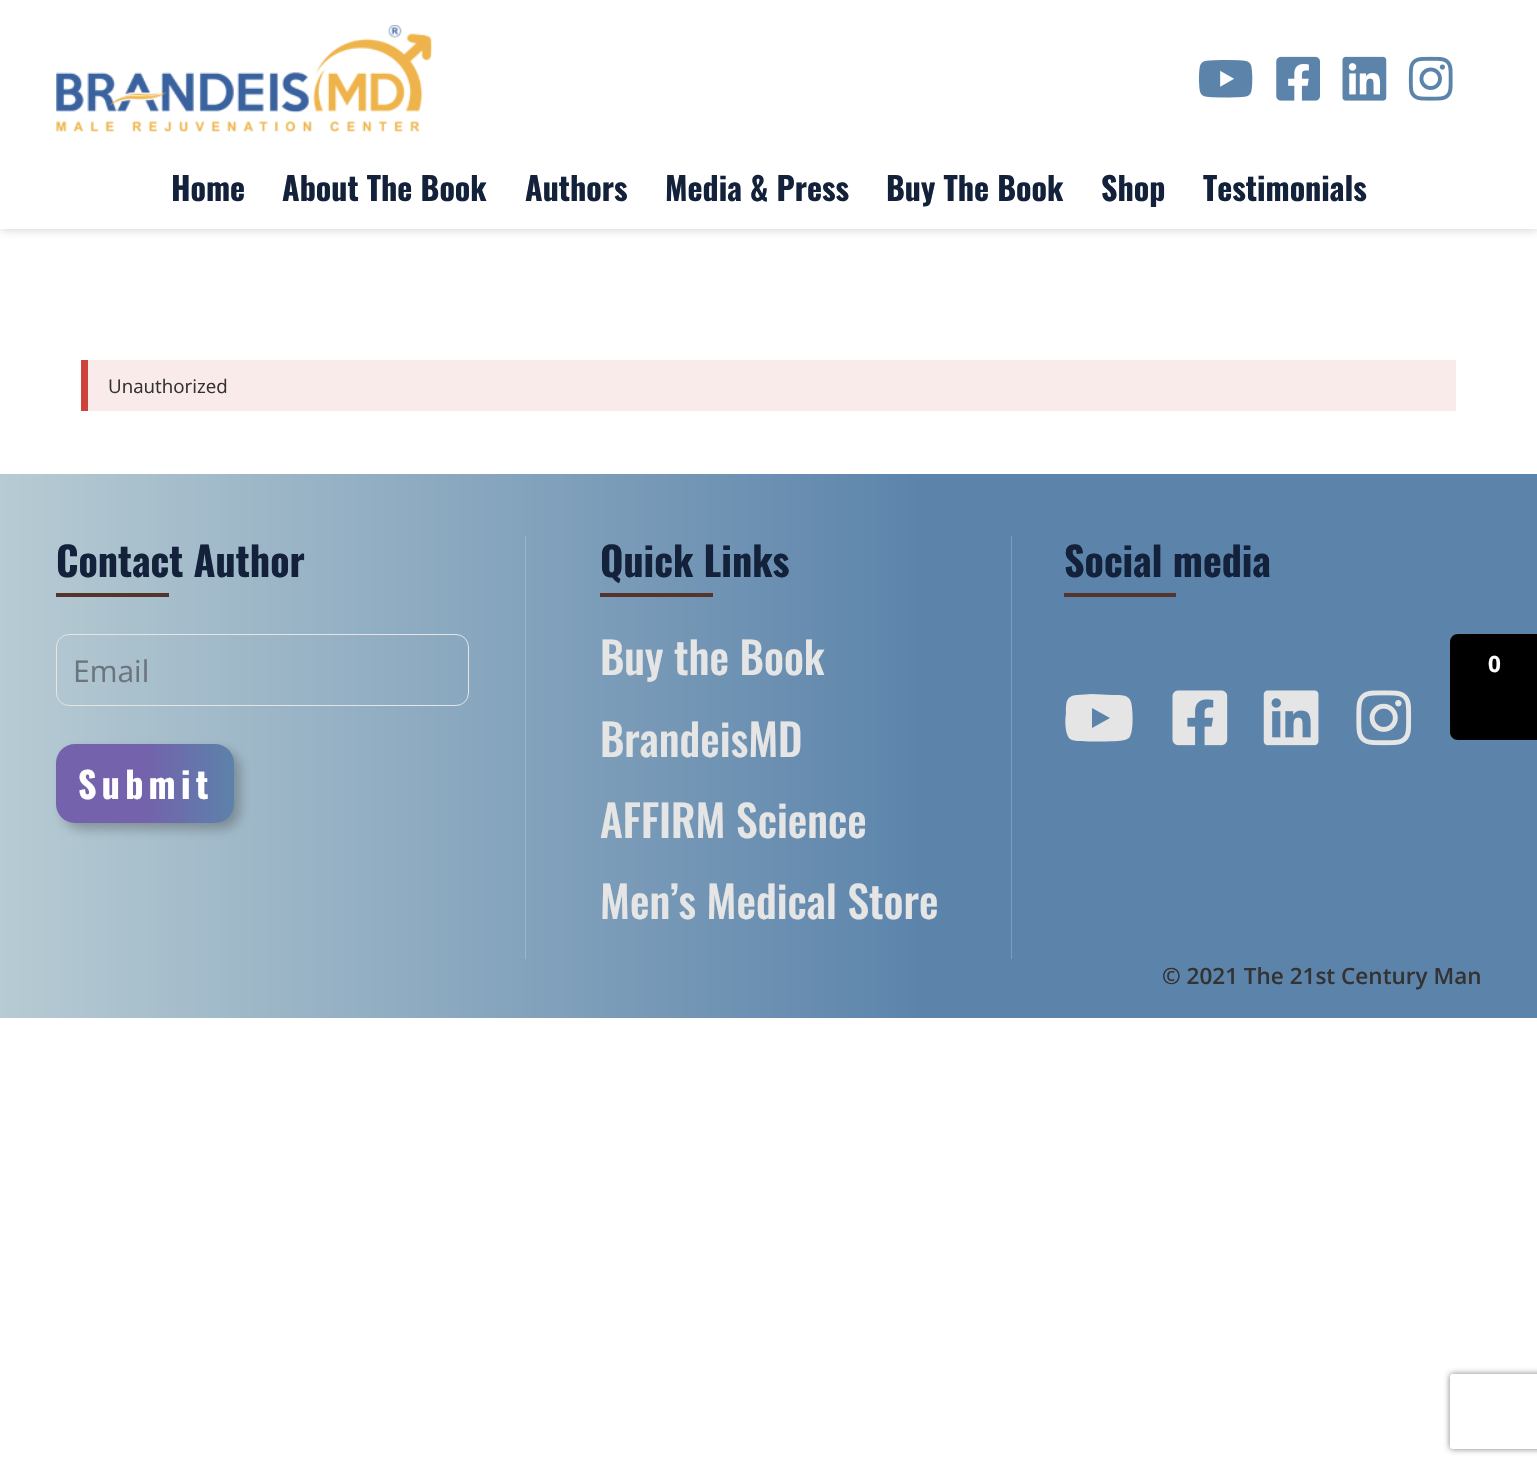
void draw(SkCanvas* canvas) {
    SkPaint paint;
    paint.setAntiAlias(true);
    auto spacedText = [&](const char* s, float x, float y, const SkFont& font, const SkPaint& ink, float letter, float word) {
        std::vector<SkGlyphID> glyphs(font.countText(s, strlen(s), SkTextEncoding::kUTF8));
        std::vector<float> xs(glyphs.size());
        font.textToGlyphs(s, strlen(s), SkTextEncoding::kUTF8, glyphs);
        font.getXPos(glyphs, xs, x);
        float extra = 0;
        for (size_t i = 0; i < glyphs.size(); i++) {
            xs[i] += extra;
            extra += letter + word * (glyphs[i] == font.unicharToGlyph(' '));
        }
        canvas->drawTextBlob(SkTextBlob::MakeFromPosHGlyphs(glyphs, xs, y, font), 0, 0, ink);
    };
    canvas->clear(0xFFFFFFFF);
    paint.setColor(0x40333333);
    paint.setMaskFilter(SkMaskFilter::MakeBlur(kNormal_SkBlurStyle, 5));
    canvas->drawRect(SkRect::MakeXYWH(0, 0, 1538, 229), paint);
    paint.setMaskFilter(nullptr);
    paint.setColor(0xFFFFFFFF);
    canvas->drawRect(SkRect::MakeXYWH(0, 0, 1537, 229), paint);
    canvas->drawImageRect(SkImages::DeferredFromEncodedData(SkData::MakeFromFileName("img1.png")), SkRect::MakeXYWH(56, 25, 376, 107), SkSamplingOptions());
    canvas->drawImageRect(SkImages::DeferredFromEncodedData(SkData::MakeFromFileName("img2.png")), SkRect::MakeXYWH(1198, 60, 55, 38), SkSamplingOptions());
    canvas->drawImageRect(SkImages::DeferredFromEncodedData(SkData::MakeFromFileName("img3.png")), SkRect::MakeXYWH(1276, 56, 44, 45), SkSamplingOptions());
    canvas->drawImageRect(SkImages::DeferredFromEncodedData(SkData::MakeFromFileName("img4.png")), SkRect::MakeXYWH(1342, 56, 45, 45), SkSamplingOptions());
    canvas->drawImageRect(SkImages::DeferredFromEncodedData(SkData::MakeFromFileName("img5.png")), SkRect::MakeXYWH(1408, 56, 45, 45), SkSamplingOptions());
    SkFont font1(fontMgr->matchFamilyStyle("Oswald", SkFontStyle::Bold()), 32);
    font1.setSubpixel(true);
    paint.setColor(0xFF14213A);
    canvas->drawString("Home", 171, 201, font1, paint);
    canvas->drawString("About The Book", 282, 201, font1, paint);
    canvas->drawString("Authors", 525, 201, font1, paint);
    canvas->drawString("Media & Press", 665, 201, font1, paint);
    canvas->drawString("Buy The Book", 886, 201, font1, paint);
    canvas->drawString("Shop", 1101, 201, font1, paint);
    canvas->drawString("Testimonials", 1203, 201, font1, paint);
    paint.setColor(0xFFF8EBEA);
    canvas->drawRect(SkRect::MakeXYWH(88, 360, 1368, 51), paint);
    paint.setColor(0xFFCD423B);
    canvas->drawRect(SkRect::MakeXYWH(81, 360, 7, 51), paint);
    SkFont font2(fontMgr->matchFamilyStyle("Open Sans", SkFontStyle::Normal()), 18.75f);
    font2.setSubpixel(true);
    paint.setColor(0xFF333333);
    canvas->drawString("Unauthorized", 108, 393, font2, paint);
    {
        const SkColor colors[] = {0xFFB7CBD3, 0xFF5C84AB, 0xFF5C84AB};
        const float stops[] = {0, 0.6f, 1};
        const SkPoint ends[] = {{0, 746}, {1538, 746}};
        paint.setShader(SkGradientShader::MakeLinear(ends, colors, stops, 3, SkTileMode::kClamp));
        paint.setAlpha(255);
    }
    canvas->drawRect(SkRect::MakeXYWH(0, 474, 1537, 544), paint);
    SkFont font3(fontMgr->matchFamilyStyle("Oswald", SkFontStyle::Bold()), 40);
    font3.setSubpixel(true);
    paint.setShader(nullptr);
    paint.setColor(0xFF14213A);
    canvas->drawString("Contact Author", 56, 577, font3, paint);
    paint.setColor(0xFF55342B);
    canvas->drawRect(SkRect::MakeXYWH(56, 593, 113, 4), paint);
    paint.setStyle(SkPaint::kStroke_Style);
    paint.setStrokeWidth(1);
    paint.setColor(0xFFE5E5E5);
    canvas->drawRoundRect(SkRect::MakeXYWH(56.5f, 634.5f, 412, 71), 12.5f, 12.5f, paint);
    SkFont font4(fontMgr->matchFamilyStyle("Open Sans", SkFontStyle::Normal()), 30);
    font4.setSubpixel(true);
    paint.setStyle(SkPaint::kFill_Style);
    paint.setColor(0xFF6C757D);
    canvas->drawString("Email", 73, 682, font4, paint);
    paint.setColor(0x59333333);
    paint.setMaskFilter(SkMaskFilter::MakeBlur(kNormal_SkBlurStyle, 6));
    canvas->drawRoundRect(SkRect::MakeXYWH(63, 750, 177, 79), 19, 19, paint);
    paint.setMaskFilter(nullptr);
    {
        const SkColor colors[] = {0xFF7462AC, 0xFF7462AC, 0xFF5C82AA};
        const float stops[] = {0, 0.5f, 1};
        const SkPoint ends[] = {{56, 783}, {234, 783}};
        paint.setShader(SkGradientShader::MakeLinear(ends, colors, stops, 3, SkTileMode::kClamp));
        paint.setAlpha(255);
    }
    canvas->drawRoundRect(SkRect::MakeXYWH(56, 744, 178, 79), 19, 19, paint);
    SkFont font5(fontMgr->matchFamilyStyle("Oswald", SkFontStyle::Bold()), 36);
    font5.setSubpixel(true);
    paint.setShader(nullptr);
    paint.setColor(0xFFFFFFFF);
    spacedText("Submit", 78, 799, font5, paint, 5.25f, 0);
    paint.setColor(0xFF7D9DBC);
    canvas->drawRect(SkRect::MakeXYWH(1011, 536, 1, 423), paint);
    paint.setColor(0xFF9CB5C9);
    canvas->drawRect(SkRect::MakeXYWH(525, 536, 1, 423), paint);
    paint.setColor(0xFF14213A);
    canvas->drawString("Quick Links", 600, 577, font3, paint);
    paint.setColor(0xFF55342B);
    canvas->drawRect(SkRect::MakeXYWH(600, 593, 113, 4), paint);
    SkFont font6(fontMgr->matchFamilyStyle("Oswald", SkFontStyle(500, SkFontStyle::kNormal_Width, SkFontStyle::kUpright_Slant)), 43.75f);
    font6.setSubpixel(true);
    paint.setColor(0xFFE5E5E5);
    canvas->drawString("Buy the Book", 600, 675, font6, paint);
    canvas->drawString("BrandeisMD", 600, 757, font6, paint);
    canvas->drawString("AFFIRM Science", 600, 838, font6, paint);
    canvas->drawString("Men’s Medical Store", 600, 919, font6, paint);
    paint.setColor(0xFF14213A);
    canvas->drawString("Social media", 1064, 577, font3, paint);
    paint.setColor(0xFF55342B);
    canvas->drawRect(SkRect::MakeXYWH(1064, 593, 112, 4), paint);
    paint.setColor(0xFFE5E5E5);
    canvas->drawPath(SkPathBuilder().moveTo(1131, 702).cubicTo(1133, 709, 1134, 733, 1129, 738).lineTo(1125, 740).cubicTo(1117, 742, 1077, 742, 1072, 740).cubicTo(1069, 739, 1068, 737, 1067, 734).cubicTo(1065, 728, 1065, 719, 1066, 713).cubicTo(1066, 702, 1066, 696, 1077, 695).lineTo(1092, 694).lineTo(1112, 695).cubicTo(1119, 695, 1129, 694, 1131, 702).close().moveTo(1092, 728).lineTo(1110, 718).lineTo(1092, 708).close().detach(), paint);
    canvas->drawImageRect(SkImages::DeferredFromEncodedData(SkData::MakeFromFileName("img6.png")), SkRect::MakeXYWH(1172, 690, 56, 56), SkSamplingOptions());
    canvas->drawImageRect(SkImages::DeferredFromEncodedData(SkData::MakeFromFileName("img7.png")), SkRect::MakeXYWH(1263, 690, 56, 56), SkSamplingOptions());
    canvas->drawImageRect(SkImages::DeferredFromEncodedData(SkData::MakeFromFileName("img8.png")), SkRect::MakeXYWH(1356, 690, 56, 56), SkSamplingOptions());
    SkFont font7(fontMgr->matchFamilyStyle("Open Sans", SkFontStyle(600, SkFontStyle::kNormal_Width, SkFontStyle::kUpright_Slant)), 22.5f);
    font7.setSubpixel(true);
    paint.setColor(0xFF333333);
    canvas->drawString("© 2021 The 21st Century Man", 1162, 984, font7, paint);
    paint.setColor(0xFF000000);
    canvas->drawPath(SkPathBuilder().moveTo(1458, 634).lineTo(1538, 634).lineTo(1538, 740).lineTo(1458, 740).cubicTo(1453.5f, 740, 1450, 736.5f, 1450, 732).lineTo(1450, 642).cubicTo(1450, 637.5f, 1453.5f, 634, 1458, 634).close().detach(), paint);
    SkFont font8(fontMgr->matchFamilyStyle("Open Sans", SkFontStyle::Bold()), 22.5f);
    font8.setSubpixel(true);
    paint.setColor(0xFFFFFFFF);
    canvas->drawString("0", 1488, 672, font8, paint);
    canvas->save();
    canvas->clipPath(SkPathBuilder(SkPathFillType::kEvenOdd).moveTo(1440, 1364).lineTo(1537, 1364).lineTo(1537, 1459).lineTo(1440, 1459).close().moveTo(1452.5f, 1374).lineTo(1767.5f, 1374).cubicTo(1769, 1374, 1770, 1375, 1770, 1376.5f).lineTo(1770, 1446.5f).cubicTo(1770, 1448, 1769, 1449, 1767.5f, 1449).lineTo(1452.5f, 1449).cubicTo(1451, 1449, 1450, 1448, 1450, 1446.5f).lineTo(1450, 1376.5f).cubicTo(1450, 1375, 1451, 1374, 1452.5f, 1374).close().detach(), true);
    paint.setColor(0xFF808080);
    paint.setMaskFilter(SkMaskFilter::MakeBlur(kNormal_SkBlurStyle, 3));
    canvas->drawRoundRect(SkRect::MakeXYWH(1450, 1374, 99, 75), 2.5f, 2.5f, paint);
    paint.setMaskFilter(nullptr);
    canvas->restore();
}
